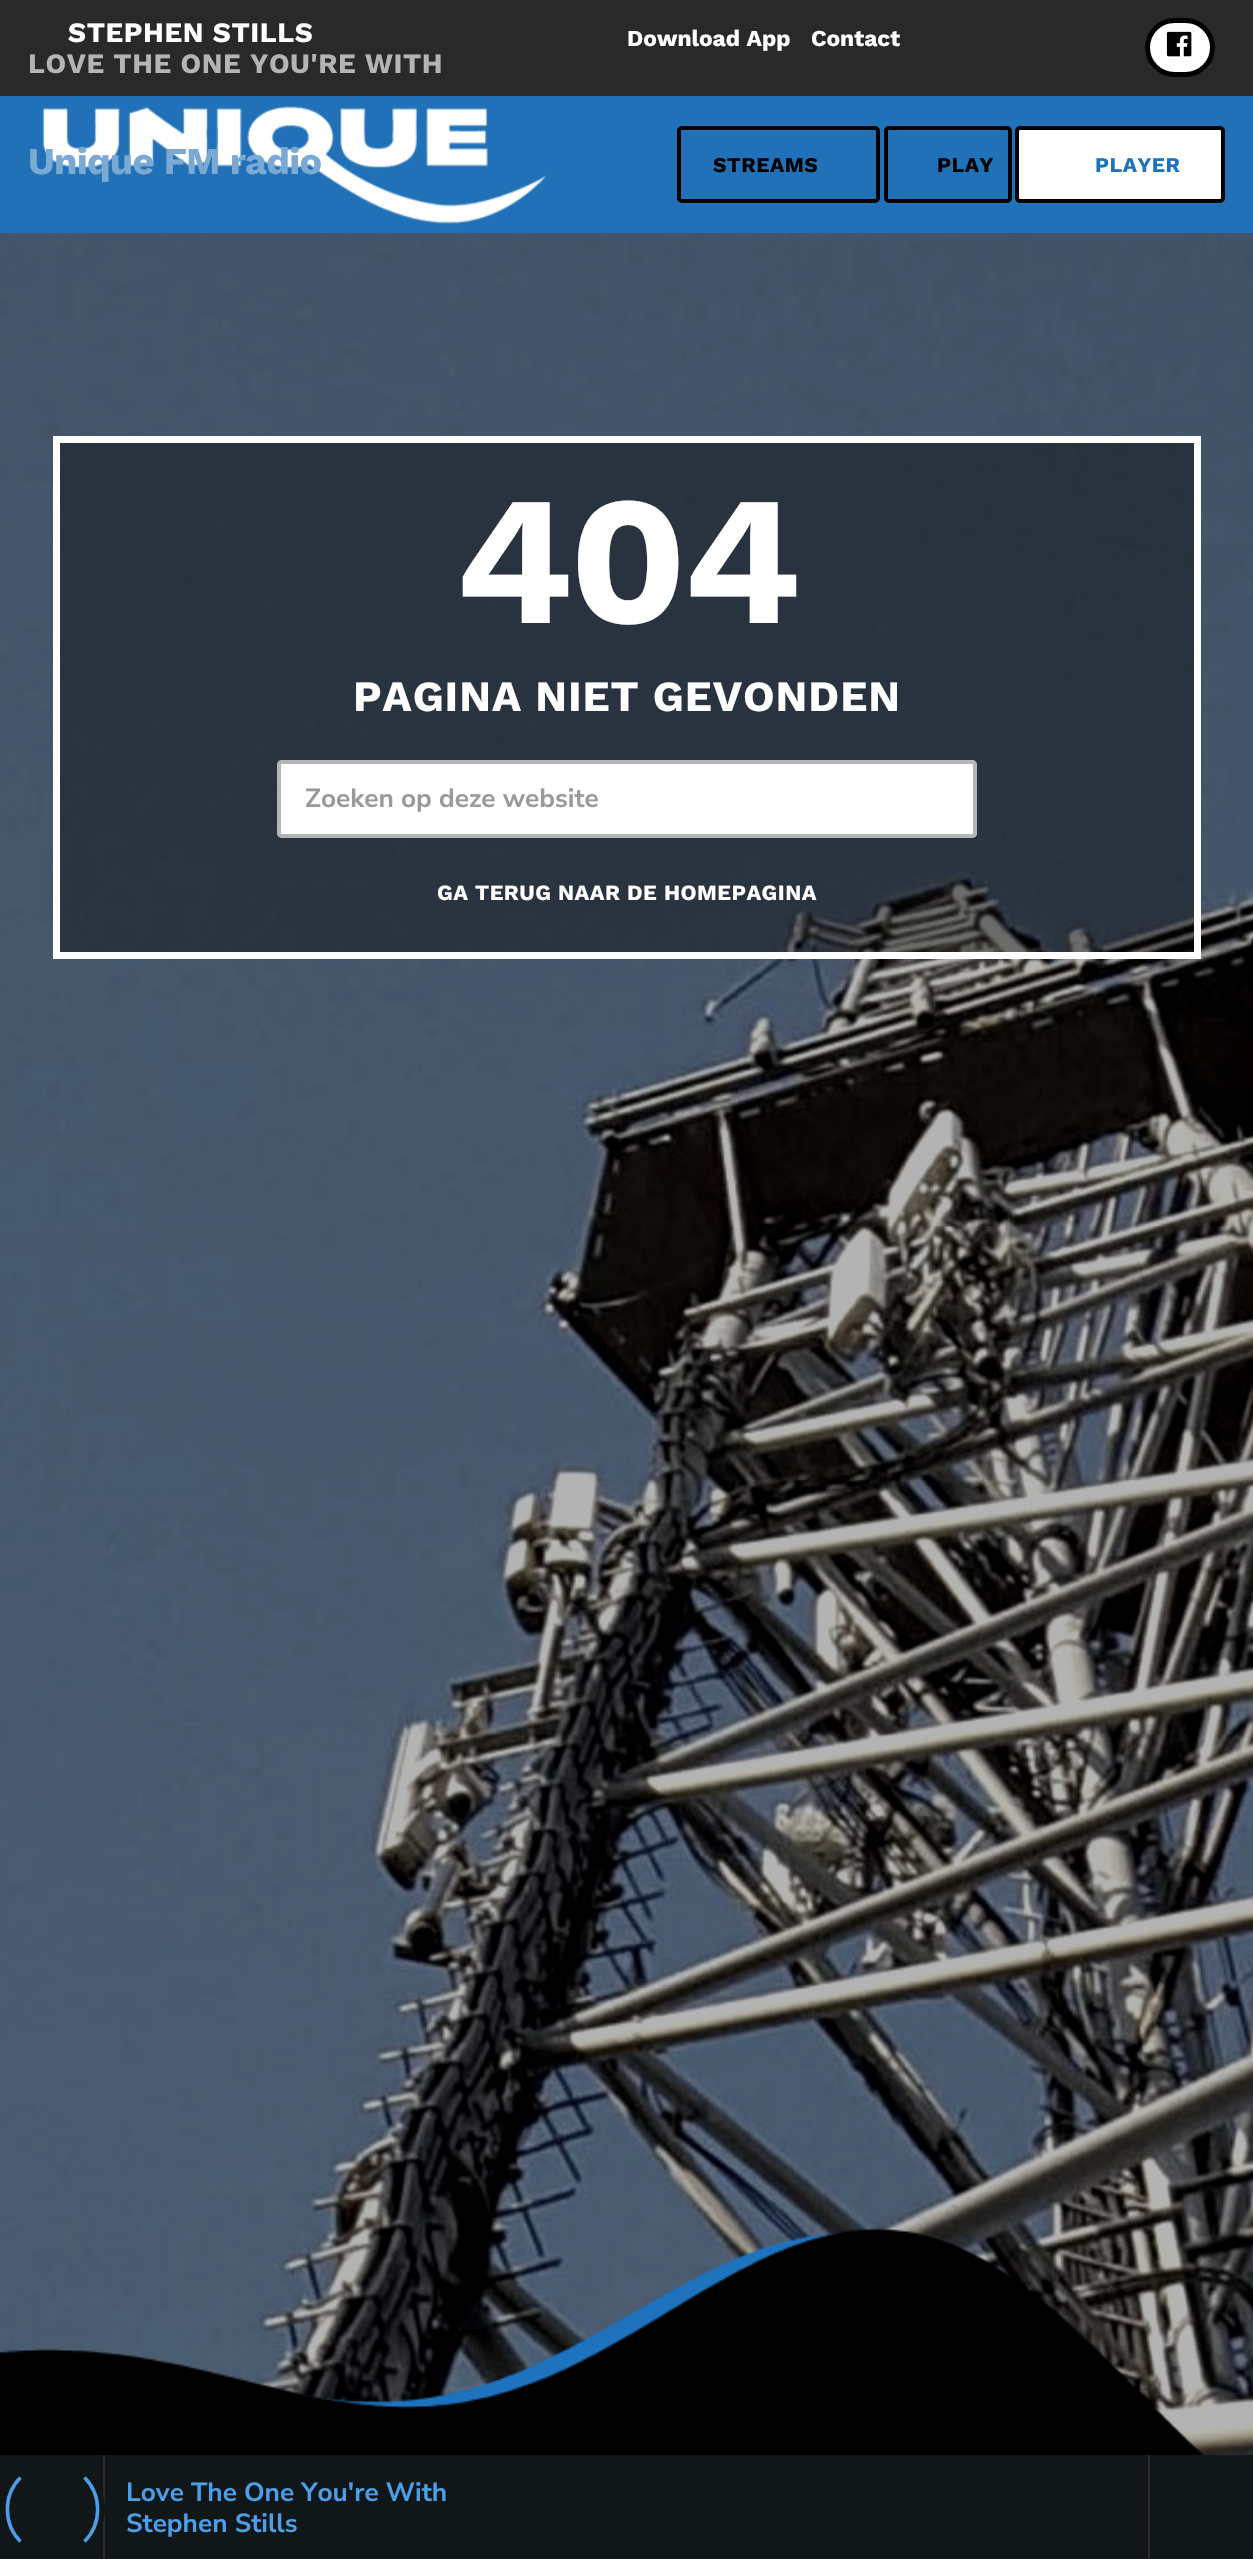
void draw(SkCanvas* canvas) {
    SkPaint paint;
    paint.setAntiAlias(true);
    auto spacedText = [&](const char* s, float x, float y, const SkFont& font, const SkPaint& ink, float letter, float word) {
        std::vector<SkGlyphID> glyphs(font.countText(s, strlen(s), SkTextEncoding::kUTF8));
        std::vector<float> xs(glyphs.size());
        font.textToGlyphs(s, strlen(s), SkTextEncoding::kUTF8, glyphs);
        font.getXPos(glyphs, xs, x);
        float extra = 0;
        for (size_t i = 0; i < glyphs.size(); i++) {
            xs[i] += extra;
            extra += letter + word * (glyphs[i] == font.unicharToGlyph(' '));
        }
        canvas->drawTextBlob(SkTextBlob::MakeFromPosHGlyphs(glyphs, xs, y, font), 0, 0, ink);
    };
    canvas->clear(0xFFFFFFFF);
    paint.setColor(0xFF2071B7);
    canvas->drawRect(SkRect::MakeXYWH(0, 96, 1253, 137), paint);
    paint.setColor(0xFF292929);
    canvas->drawRect(SkRect::MakeXYWH(0, 0, 1253, 96), paint);
    SkFont font1(fontMgr->matchFamilyStyle("Work Sans", SkFontStyle::Bold()), 28);
    font1.setSubpixel(true);
    paint.setColor(0xFFFFFFFF);
    spacedText("STEPHEN STILLS", 68, 42, font1, paint, 0.6f, 0);
    paint.setColor(0xFFB4B4B4);
    spacedText("LOVE THE ONE YOU'RE WITH", 28, 73, font1, paint, 0.6f, 0);
    SkFont font2(fontMgr->matchFamilyStyle("Work Sans", SkFontStyle::Bold()), 22.75f);
    font2.setSubpixel(true);
    paint.setColor(0xFFFFFFFF);
    canvas->drawString("Download App", 627, 46, font2, paint);
    canvas->drawString("Contact", 811, 46, font2, paint);
    canvas->drawRoundRect(SkRect::MakeXYWH(1147.5f, 20.5f, 65, 54), 27, 27, paint);
    paint.setStyle(SkPaint::kStroke_Style);
    paint.setStrokeWidth(5);
    paint.setColor(0xFF000000);
    canvas->drawRoundRect(SkRect::MakeXYWH(1147.5f, 20.5f, 65, 54), 27, 27, paint);
    canvas->drawImageRect(SkImages::DeferredFromEncodedData(SkData::MakeFromFileName("img1.png")), SkRect::MakeXYWH(1166, 31, 26, 26), SkSamplingOptions());
    canvas->drawImageRect(SkImages::DeferredFromEncodedData(SkData::MakeFromFileName("img2.png")), SkRect::MakeXYWH(42, 106, 505, 119), SkSamplingOptions());
    SkFont font3(fontMgr->matchFamilyStyle("Work Sans", SkFontStyle::Bold()), 37.75f);
    font3.setSubpixel(true);
    paint.setStyle(SkPaint::kFill_Style);
    paint.setColor(0xFF7AAAD4);
    spacedText("Unique FM radio", 28, 174, font3, paint, -0.75f, 0);
    paint.setStyle(SkPaint::kStroke_Style);
    paint.setStrokeWidth(4);
    paint.setColor(0xFF000000);
    canvas->drawRoundRect(SkRect::MakeXYWH(679, 128, 199, 73), 3, 3, paint);
    SkFont font4(fontMgr->matchFamilyStyle("Work Sans", SkFontStyle::Bold()), 21);
    font4.setSubpixel(true);
    paint.setStyle(SkPaint::kFill_Style);
    spacedText("STREAMS", 713, 172, font4, paint, 0.5f, 0);
    paint.setStyle(SkPaint::kStroke_Style);
    canvas->drawRoundRect(SkRect::MakeXYWH(886, 128, 124, 73), 3, 3, paint);
    paint.setStyle(SkPaint::kFill_Style);
    spacedText("PLAY", 937, 172, font4, paint, 0.5f, 0);
    paint.setColor(0xFFFFFFFF);
    canvas->drawRoundRect(SkRect::MakeXYWH(1017, 128, 206, 73), 3, 3, paint);
    paint.setStyle(SkPaint::kStroke_Style);
    paint.setColor(0xFF000000);
    canvas->drawRoundRect(SkRect::MakeXYWH(1017, 128, 206, 73), 3, 3, paint);
    paint.setStyle(SkPaint::kFill_Style);
    paint.setColor(0xFF1E73BE);
    spacedText("PLAYER", 1095, 172, font4, paint, 0.5f, 0);
    canvas->drawImageRect(SkImages::DeferredFromEncodedData(SkData::MakeFromFileName("img3.png")), SkRect::MakeXYWH(0, 233, 1253, 2222), SkSamplingOptions());
    paint.setColor(0x66000000);
    canvas->drawRect(SkRect::MakeXYWH(56.5f, 439.5f, 1141, 516), paint);
    paint.setStyle(SkPaint::kStroke_Style);
    paint.setStrokeWidth(7);
    paint.setColor(0xFFFFFFFF);
    canvas->drawRect(SkRect::MakeXYWH(56.5f, 439.5f, 1141, 516), paint);
    SkFont font5(fontMgr->matchFamilyStyle("Work Sans", SkFontStyle::Bold()), 183);
    font5.setSubpixel(true);
    paint.setStyle(SkPaint::kFill_Style);
    spacedText("404", 455, 623, font5, paint, -4, 0);
    SkFont font6(fontMgr->matchFamilyStyle("Work Sans", SkFontStyle::Bold()), 43);
    font6.setSubpixel(true);
    spacedText("PAGINA NIET GEVONDEN", 353, 711, font6, paint, 0.9f, 0);
    canvas->drawRoundRect(SkRect::MakeXYWH(277, 760, 700, 78), 5, 5, paint);
    paint.setStyle(SkPaint::kStroke_Style);
    paint.setStrokeWidth(4);
    paint.setColor(0xB3969696);
    canvas->drawRoundRect(SkRect::MakeXYWH(279, 762, 696, 74), 3, 3, paint);
    SkFont font7(fontMgr->matchFamilyStyle("Nunito Sans", SkFontStyle::Bold()), 26.25f);
    font7.setSubpixel(true);
    paint.setStyle(SkPaint::kFill_Style);
    paint.setColor(0xFF9A9A9A);
    canvas->drawString("Zoeken op deze website", 305, 807, font7, paint);
    SkFont font8(fontMgr->matchFamilyStyle("Work Sans", SkFontStyle::Bold()), 21.75f);
    font8.setSubpixel(true);
    paint.setColor(0xFFFFFFFF);
    spacedText("GA TERUG NAAR DE HOMEPAGINA", 437, 900, font8, paint, 0.45f, 0);
    canvas->drawImageRect(SkImages::DeferredFromEncodedData(SkData::MakeFromFileName("img5.png")), SkRect::MakeXYWH(0, 2232, 846, 177), SkSamplingOptions());
    canvas->drawImageRect(SkImages::DeferredFromEncodedData(SkData::MakeFromFileName("img4.png")), SkRect::MakeXYWH(0, 2227, 1205, 228), SkSamplingOptions());
    paint.setColor(0xFF111618);
    canvas->drawRect(SkRect::MakeXYWH(0, 2455, 1253, 104), paint);
    paint.setColor(0xFF2A2D2F);
    canvas->drawRect(SkRect::MakeXYWH(103, 2455, 2, 104), paint);
    paint.setColor(0xFF111618);
    canvas->drawCircle(52.5f, 2509.5f, 52.5f, paint);
    paint.setStyle(SkPaint::kStroke_Style);
    paint.setStrokeWidth(3.5f);
    paint.setColor(0xFF4B9EE7);
    canvas->drawPath(SkPathBuilder().moveTo(84.5f, 2477.5f).cubicTo(102, 2495, 102, 2524, 84.5f, 2541.5f).detach(), paint);
    canvas->drawPath(SkPathBuilder().moveTo(20.5f, 2541.5f).cubicTo(3, 2524, 3, 2495, 20.5f, 2477.5f).detach(), paint);
    paint.setStyle(SkPaint::kFill_Style);
    canvas->drawString("Love The One You're With", 126, 2501, font7, paint);
    canvas->drawString("Stephen Stills", 126, 2532, font7, paint);
    paint.setColor(0xFF2A2D2F);
    canvas->drawRect(SkRect::MakeXYWH(1148, 2455, 2, 104), paint);
}
